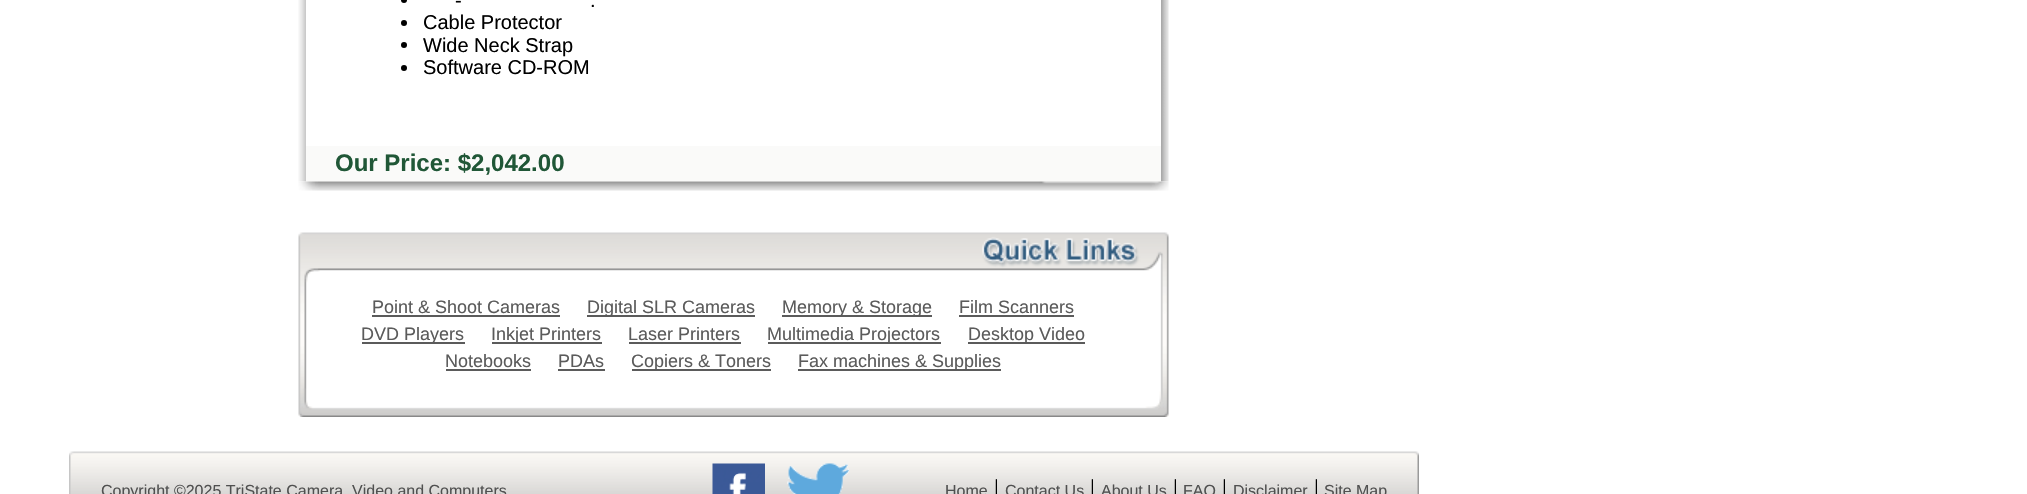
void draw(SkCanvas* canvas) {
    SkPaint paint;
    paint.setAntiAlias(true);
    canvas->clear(0xFFFFFFFF);
    canvas->drawImageRect(SkImages::DeferredFromEncodedData(SkData::MakeFromFileName("img1.png")), SkRect::MakeXYWH(298, 0, 8, 182), SkSamplingOptions());
    paint.setColor(0xFF000000);
    canvas->drawCircle(404, 0, 3, paint);
    SkFont font1(fontMgr->matchFamilyStyle("Liberation Sans", SkFontStyle::Normal()), 20);
    font1.setSubpixel(true);
    canvas->drawString("-", 455, 7, font1, paint);
    canvas->drawString(".", 590, 7, font1, paint);
    canvas->drawCircle(404, 23, 3, paint);
    canvas->drawString("Cable Protector", 423, 29, font1, paint);
    canvas->drawCircle(404, 45, 3, paint);
    canvas->drawString("Wide Neck Strap", 423, 52, font1, paint);
    canvas->drawCircle(404, 68, 3, paint);
    canvas->drawString("Software CD-ROM", 423, 74, font1, paint);
    paint.setColor(0xFFFAFAF9);
    canvas->drawRect(SkRect::MakeXYWH(306, 146, 855, 36), paint);
    SkFont font2(fontMgr->matchFamilyStyle("Liberation Sans", SkFontStyle::Bold()), 24);
    font2.setSubpixel(true);
    paint.setColor(0xFF205737);
    canvas->drawString("Our Price: $2,042.00", 335, 171, font2, paint);
    canvas->drawImageRect(SkImages::DeferredFromEncodedData(SkData::MakeFromFileName("img2.png")), SkRect::MakeXYWH(1161, 0, 8, 182), SkSamplingOptions());
    canvas->drawImageRect(SkImages::DeferredFromEncodedData(SkData::MakeFromFileName("img3.png")), SkRect::MakeXYWH(298, 181, 871, 10), SkSamplingOptions());
    canvas->drawImageRect(SkImages::DeferredFromEncodedData(SkData::MakeFromFileName("img4.png")), SkRect::MakeXYWH(298, 232, 871, 185), SkSamplingOptions());
    SkFont font3(fontMgr->matchFamilyStyle("Liberation Sans", SkFontStyle::Normal()), 18);
    font3.setSubpixel(true);
    paint.setColor(0xFF5B5B5B);
    canvas->drawString("Point & Shoot Cameras", 372, 313, font3, paint);
    canvas->drawRect(SkRect::MakeXYWH(372, 315, 188, 2), paint);
    canvas->drawRect(SkRect::MakeXYWH(587, 315, 168, 2), paint);
    canvas->drawString("Digital SLR Cameras", 587, 313, font3, paint);
    canvas->drawRect(SkRect::MakeXYWH(782, 315, 150, 2), paint);
    canvas->drawString("Memory & Storage", 782, 313, font3, paint);
    canvas->drawString("Film Scanners", 959, 313, font3, paint);
    canvas->drawRect(SkRect::MakeXYWH(959, 315, 115, 2), paint);
    canvas->drawRect(SkRect::MakeXYWH(362, 342, 103, 2), paint);
    canvas->drawString("DVD Players", 361, 340, font3, paint);
    canvas->drawRect(SkRect::MakeXYWH(492, 342, 110, 2), paint);
    canvas->drawString("Inkjet Printers", 491, 340, font3, paint);
    canvas->drawString("Laser Printers", 628, 340, font3, paint);
    canvas->drawRect(SkRect::MakeXYWH(629, 342, 112, 2), paint);
    canvas->drawRect(SkRect::MakeXYWH(768, 342, 173, 2), paint);
    canvas->drawString("Multimedia Projectors", 767, 340, font3, paint);
    canvas->drawRect(SkRect::MakeXYWH(968, 342, 117, 2), paint);
    canvas->drawString("Desktop Video", 968, 340, font3, paint);
    canvas->drawString("Notebooks", 445, 367, font3, paint);
    canvas->drawRect(SkRect::MakeXYWH(446, 369, 85, 2), paint);
    canvas->drawString("PDAs", 558, 367, font3, paint);
    canvas->drawRect(SkRect::MakeXYWH(558, 369, 47, 2), paint);
    canvas->drawRect(SkRect::MakeXYWH(632, 369, 139, 2), paint);
    canvas->drawString("Copiers & Toners", 631, 367, font3, paint);
    canvas->drawRect(SkRect::MakeXYWH(798, 369, 203, 2), paint);
    canvas->drawString("Fax machines & Supplies", 798, 367, font3, paint);
    canvas->drawImageRect(SkImages::DeferredFromEncodedData(SkData::MakeFromFileName("img5.png")), SkRect::MakeXYWH(69, 451, 1350, 43), SkSamplingOptions());
    SkFont font4(fontMgr->matchFamilyStyle("Liberation Sans", SkFontStyle::Normal()), 16);
    font4.setSubpixel(true);
    paint.setColor(0xFF505050);
    canvas->drawString("Copyright ©2025 TriState Camera, Video and Computers", 101, 496, font4, paint);
    canvas->drawImageRect(SkImages::DeferredFromEncodedData(SkData::MakeFromFileName("img6.png")), SkRect::MakeXYWH(712, 463, 53, 31), SkSamplingOptions());
    canvas->drawImageRect(SkImages::DeferredFromEncodedData(SkData::MakeFromFileName("img7.png")), SkRect::MakeXYWH(787, 463, 62, 31), SkSamplingOptions());
    canvas->drawString("Home", 945, 496, font4, paint);
    SkFont font5(fontMgr->matchFamilyStyle("Liberation Serif", SkFontStyle::Normal()), 24);
    font5.setSubpixel(true);
    paint.setColor(0xFF000000);
    canvas->drawString("|", 994, 496, font5, paint);
    paint.setColor(0xFF505050);
    canvas->drawString("Contact Us", 1005, 496, font4, paint);
    paint.setColor(0xFF000000);
    canvas->drawString("|", 1090, 496, font5, paint);
    paint.setColor(0xFF505050);
    canvas->drawString("About Us", 1101, 496, font4, paint);
    paint.setColor(0xFF000000);
    canvas->drawString("|", 1173, 496, font5, paint);
    paint.setColor(0xFF505050);
    canvas->drawString("FAQ", 1183, 496, font4, paint);
    paint.setColor(0xFF000000);
    canvas->drawString("|", 1222, 496, font5, paint);
    paint.setColor(0xFF505050);
    canvas->drawString("Disclaimer", 1233, 496, font4, paint);
    paint.setColor(0xFF000000);
    canvas->drawString("|", 1314, 496, font5, paint);
    paint.setColor(0xFF505050);
    canvas->drawString("Site Map", 1324, 496, font4, paint);
}
